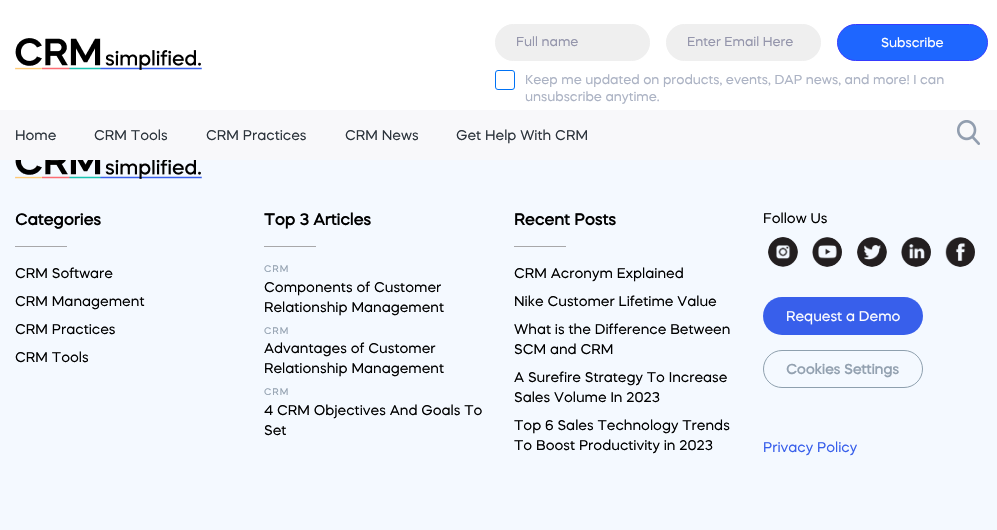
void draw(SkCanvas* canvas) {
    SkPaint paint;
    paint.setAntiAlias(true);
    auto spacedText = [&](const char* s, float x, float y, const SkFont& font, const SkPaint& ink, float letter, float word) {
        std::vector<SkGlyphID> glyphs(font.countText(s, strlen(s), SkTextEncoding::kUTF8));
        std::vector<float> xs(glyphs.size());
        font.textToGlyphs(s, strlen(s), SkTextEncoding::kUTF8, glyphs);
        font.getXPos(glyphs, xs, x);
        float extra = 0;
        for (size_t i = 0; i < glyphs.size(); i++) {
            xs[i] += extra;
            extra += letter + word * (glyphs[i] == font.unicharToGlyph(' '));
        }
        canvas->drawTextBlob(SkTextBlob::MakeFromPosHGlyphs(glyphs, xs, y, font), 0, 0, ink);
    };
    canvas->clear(0xFFF4F9FF);
    paint.setColor(0xFFFFFFFF);
    canvas->drawRect(SkRect::MakeXYWH(0, 0, 997, 110), paint);
    canvas->drawImageRect(SkImages::DeferredFromEncodedData(SkData::MakeFromFileName("img1.png")), SkRect::MakeXYWH(15, 38, 187, 32), SkSamplingOptions());
    paint.setColor(0xFFEFEFEF);
    canvas->drawRoundRect(SkRect::MakeXYWH(495.5f, 24.5f, 154, 36), 18, 18, paint);
    paint.setStyle(SkPaint::kStroke_Style);
    paint.setStrokeWidth(1);
    canvas->drawRoundRect(SkRect::MakeXYWH(495.5f, 24.5f, 154, 36), 18, 18, paint);
    SkFont font1(fontMgr->matchFamilyStyle("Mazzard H", SkFontStyle::Normal()), 13);
    font1.setSubpixel(true);
    paint.setStyle(SkPaint::kFill_Style);
    paint.setColor(0xFF9596AC);
    canvas->drawString("Full name", 516, 46, font1, paint);
    paint.setColor(0xFFEFEFEF);
    canvas->drawRoundRect(SkRect::MakeXYWH(666.5f, 24.5f, 154, 36), 18, 18, paint);
    paint.setStyle(SkPaint::kStroke_Style);
    canvas->drawRoundRect(SkRect::MakeXYWH(666.5f, 24.5f, 154, 36), 18, 18, paint);
    paint.setStyle(SkPaint::kFill_Style);
    paint.setColor(0xFF9596AC);
    canvas->drawString("Enter Email Here", 687, 46, font1, paint);
    paint.setColor(0xFF1E66FF);
    canvas->drawRoundRect(SkRect::MakeXYWH(837.5f, 24.5f, 150, 36), 18, 18, paint);
    paint.setStyle(SkPaint::kStroke_Style);
    paint.setColor(0xFF363BFF);
    canvas->drawRoundRect(SkRect::MakeXYWH(837.5f, 24.5f, 150, 36), 18, 18, paint);
    paint.setStyle(SkPaint::kFill_Style);
    paint.setColor(0xFFFFFFFF);
    canvas->drawString("Subscribe", 881, 47, font1, paint);
    paint.setStyle(SkPaint::kStroke_Style);
    paint.setColor(0xFF0072F5);
    canvas->drawRoundRect(SkRect::MakeXYWH(495.5f, 70.5f, 19, 19), 2.5f, 2.5f, paint);
    paint.setStyle(SkPaint::kFill_Style);
    paint.setColor(0xFFACB3C4);
    canvas->drawString("Keep me updated on products, events, DAP news, and more! I can", 525, 84, font1, paint);
    canvas->drawString("unsubscribe anytime.", 525, 101, font1, paint);
    paint.setColor(0xFFF8F8FA);
    canvas->drawRect(SkRect::MakeXYWH(0, 110, 997, 50), paint);
    SkFont font2(fontMgr->matchFamilyStyle("Mazzard H", SkFontStyle::Normal()), 14);
    font2.setSubpixel(true);
    paint.setColor(0xFF2C343C);
    canvas->drawString("Home", 15, 140, font2, paint);
    canvas->drawString("CRM Tools", 94, 140, font2, paint);
    canvas->drawString("CRM Practices", 206, 140, font2, paint);
    canvas->drawString("CRM News", 345, 140, font2, paint);
    canvas->drawString("Get Help With CRM", 456, 140, font2, paint);
    canvas->drawImageRect(SkImages::DeferredFromEncodedData(SkData::MakeFromFileName("img2.png")), SkRect::MakeXYWH(957, 120, 23, 25), SkSamplingOptions());
    canvas->drawImageRect(SkImages::DeferredFromEncodedData(SkData::MakeFromFileName("img3.png")), SkRect::MakeXYWH(15, 160, 187, 19), SkSamplingOptions());
    SkFont font3(fontMgr->matchFamilyStyle("Mazzard H", SkFontStyle::Bold()), 16);
    font3.setSubpixel(true);
    paint.setColor(0xFF000000);
    canvas->drawString("Categories", 15, 225, font3, paint);
    paint.setColor(0xFFA8A8AA);
    canvas->drawRect(SkRect::MakeXYWH(15, 246, 52, 1), paint);
    paint.setColor(0xFF000000);
    canvas->drawString("CRM Software", 15, 278, font2, paint);
    canvas->drawString("CRM Management", 15, 306, font2, paint);
    canvas->drawString("CRM Practices", 15, 334, font2, paint);
    canvas->drawString("CRM Tools", 15, 362, font2, paint);
    canvas->drawString("Top 3 Articles", 264, 225, font3, paint);
    paint.setColor(0xFFA8A8AA);
    canvas->drawRect(SkRect::MakeXYWH(264, 246, 52, 1), paint);
    SkFont font4(fontMgr->matchFamilyStyle("Mazzard H", SkFontStyle::Normal()), 9.5f);
    font4.setSubpixel(true);
    paint.setColor(0xFF93A1B0);
    spacedText("CRM", 264, 272, font4, paint, 1, 0);
    paint.setColor(0xFF000000);
    canvas->drawString("Components of Customer", 264, 292, font2, paint);
    canvas->drawString("Relationship Management", 264, 312, font2, paint);
    paint.setColor(0xFF93A1B0);
    spacedText("CRM", 264, 334, font4, paint, 1, 0);
    paint.setColor(0xFF000000);
    canvas->drawString("Advantages of Customer", 264, 353, font2, paint);
    canvas->drawString("Relationship Management", 264, 373, font2, paint);
    paint.setColor(0xFF93A1B0);
    spacedText("CRM", 264, 395, font4, paint, 1, 0);
    paint.setColor(0xFF000000);
    canvas->drawString("4 CRM Objectives And Goals To", 264, 415, font2, paint);
    canvas->drawString("Set", 264, 435, font2, paint);
    canvas->drawString("Recent Posts", 514, 225, font3, paint);
    paint.setColor(0xFFA8A8AA);
    canvas->drawRect(SkRect::MakeXYWH(514, 246, 52, 1), paint);
    paint.setColor(0xFF000000);
    canvas->drawString("CRM Acronym Explained", 514, 278, font2, paint);
    canvas->drawString("Nike Customer Lifetime Value", 514, 306, font2, paint);
    canvas->drawString("What is the Difference Between", 514, 334, font2, paint);
    canvas->drawString("SCM and CRM", 514, 354, font2, paint);
    canvas->drawString("A Surefire Strategy To Increase", 514, 382, font2, paint);
    canvas->drawString("Sales Volume In 2023", 514, 402, font2, paint);
    canvas->drawString("Top 6 Sales Technology Trends", 514, 430, font2, paint);
    canvas->drawString("To Boost Productivity in 2023", 514, 450, font2, paint);
    canvas->drawString("Follow Us", 763, 223, font2, paint);
    canvas->drawImageRect(SkImages::DeferredFromEncodedData(SkData::MakeFromFileName("img4.png")), SkRect::MakeXYWH(768, 237, 30, 30), SkSamplingOptions());
    canvas->drawImageRect(SkImages::DeferredFromEncodedData(SkData::MakeFromFileName("img5.png")), SkRect::MakeXYWH(812, 237, 30, 30), SkSamplingOptions());
    canvas->drawImageRect(SkImages::DeferredFromEncodedData(SkData::MakeFromFileName("img6.png")), SkRect::MakeXYWH(857, 237, 30, 30), SkSamplingOptions());
    canvas->drawImageRect(SkImages::DeferredFromEncodedData(SkData::MakeFromFileName("img7.png")), SkRect::MakeXYWH(901, 237, 30, 30), SkSamplingOptions());
    canvas->drawImageRect(SkImages::DeferredFromEncodedData(SkData::MakeFromFileName("img8.png")), SkRect::MakeXYWH(945, 237, 30, 30), SkSamplingOptions());
    paint.setColor(0xFF385FEB);
    canvas->drawRoundRect(SkRect::MakeXYWH(763, 297, 160, 38), 19, 19, paint);
    paint.setColor(0xFFFFFFFF);
    canvas->drawString("Request a Demo", 786, 321, font2, paint);
    paint.setStyle(SkPaint::kStroke_Style);
    paint.setColor(0xFF8EA0AE);
    canvas->drawRoundRect(SkRect::MakeXYWH(763.5f, 350.5f, 159, 37), 18.5f, 18.5f, paint);
    SkFont font5(fontMgr->matchFamilyStyle("Mazzard H", SkFontStyle::Bold()), 14);
    font5.setSubpixel(true);
    paint.setStyle(SkPaint::kFill_Style);
    paint.setColor(0xFF93A1B0);
    canvas->drawString("Cookies Settings", 786, 374, font5, paint);
    paint.setColor(0xFF385FEB);
    canvas->drawString("Privacy Policy", 763, 452, font2, paint);
}
